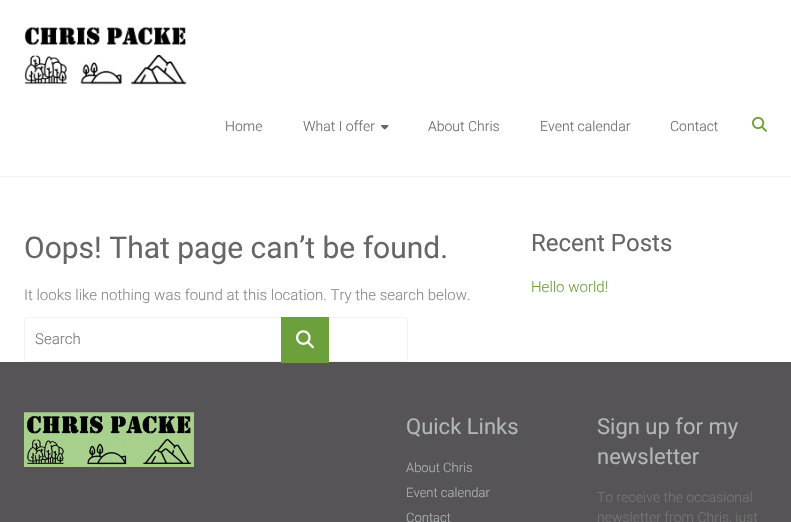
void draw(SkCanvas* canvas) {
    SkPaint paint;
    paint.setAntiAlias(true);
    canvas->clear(0xFFFFFFFF);
    paint.setColor(0xFFF2F2F2);
    canvas->drawRect(SkRect::MakeXYWH(0, 176, 791, 1), paint);
    canvas->drawImageRect(SkImages::DeferredFromEncodedData(SkData::MakeFromFileName("img1.png")), SkRect::MakeXYWH(24, 26, 163, 59), SkSamplingOptions());
    SkFont font1(fontMgr->matchFamilyStyle("Roboto", SkFontStyle(300, SkFontStyle::kNormal_Width, SkFontStyle::kUpright_Slant)), 14);
    font1.setSubpixel(true);
    paint.setColor(0xFF666666);
    canvas->drawString("Home", 225, 131, font1, paint);
    canvas->drawString("What I offer", 303, 131, font1, paint);
    canvas->drawImageRect(SkImages::DeferredFromEncodedData(SkData::MakeFromFileName("img2.png")), SkRect::MakeXYWH(381, 125, 8, 5), SkSamplingOptions());
    canvas->drawString("About Chris", 428, 131, font1, paint);
    canvas->drawString("Event calendar", 540, 131, font1, paint);
    canvas->drawString("Contact", 670, 131, font1, paint);
    canvas->drawImageRect(SkImages::DeferredFromEncodedData(SkData::MakeFromFileName("img3.png")), SkRect::MakeXYWH(752, 116, 15, 16), SkSamplingOptions());
    SkFont font2(fontMgr->matchFamilyStyle("Roboto", SkFontStyle::Normal()), 30);
    font2.setSubpixel(true);
    canvas->drawString("Oops! That page can’t be found.", 24, 258, font2, paint);
    SkFont font3(fontMgr->matchFamilyStyle("Roboto", SkFontStyle(300, SkFontStyle::kNormal_Width, SkFontStyle::kUpright_Slant)), 15);
    font3.setSubpixel(true);
    paint.setColor(0xFF888888);
    canvas->drawString("It looks like nothing was found at this location. Try the search below.", 24, 300, font3, paint);
    paint.setStyle(SkPaint::kStroke_Style);
    paint.setStrokeWidth(1);
    paint.setColor(0xFFF2F2F2);
    canvas->drawRoundRect(SkRect::MakeXYWH(24.5f, 317.5f, 383, 44), 2.5f, 2.5f, paint);
    paint.setStyle(SkPaint::kFill_Style);
    paint.setColor(0xFF777777);
    canvas->drawString("Search", 35, 344, font3, paint);
    paint.setColor(0xFF565456);
    canvas->drawRect(SkRect::MakeXYWH(0, 362, 791, 160), paint);
    paint.setColor(0xFF6CA03B);
    canvas->drawRect(SkRect::MakeXYWH(281, 317, 48, 46), paint);
    canvas->drawImageRect(SkImages::DeferredFromEncodedData(SkData::MakeFromFileName("img4.png")), SkRect::MakeXYWH(296, 330, 18, 19), SkSamplingOptions());
    SkFont font4(fontMgr->matchFamilyStyle("Roboto", SkFontStyle::Normal()), 24);
    font4.setSubpixel(true);
    paint.setColor(0xFF666666);
    canvas->drawString("Recent Posts", 531, 251, font4, paint);
    paint.setColor(0xFF6CA03B);
    canvas->drawString("Hello world!", 531, 292, font3, paint);
    canvas->drawImageRect(SkImages::DeferredFromEncodedData(SkData::MakeFromFileName("img5.png")), SkRect::MakeXYWH(24, 412, 170, 55), SkSamplingOptions());
    SkFont font5(fontMgr->matchFamilyStyle("Roboto", SkFontStyle::Normal()), 22);
    font5.setSubpixel(true);
    paint.setColor(0xFFB1B6B6);
    canvas->drawString("Quick Links", 406, 434, font5, paint);
    SkFont font6(fontMgr->matchFamilyStyle("Roboto", SkFontStyle(300, SkFontStyle::kNormal_Width, SkFontStyle::kUpright_Slant)), 13);
    font6.setSubpixel(true);
    canvas->drawString("About Chris", 406, 472, font6, paint);
    canvas->drawString("Event calendar", 406, 497, font6, paint);
    canvas->drawString("Contact", 406, 522, font6, paint);
    canvas->drawString("Sign up for my", 597, 434, font5, paint);
    canvas->drawString("newsletter", 597, 464, font5, paint);
    paint.setColor(0xFF777777);
    canvas->drawString("To receive the occasional", 597, 502, font1, paint);
    canvas->drawString("newsletter from Chris, just", 597, 522, font1, paint);
}
